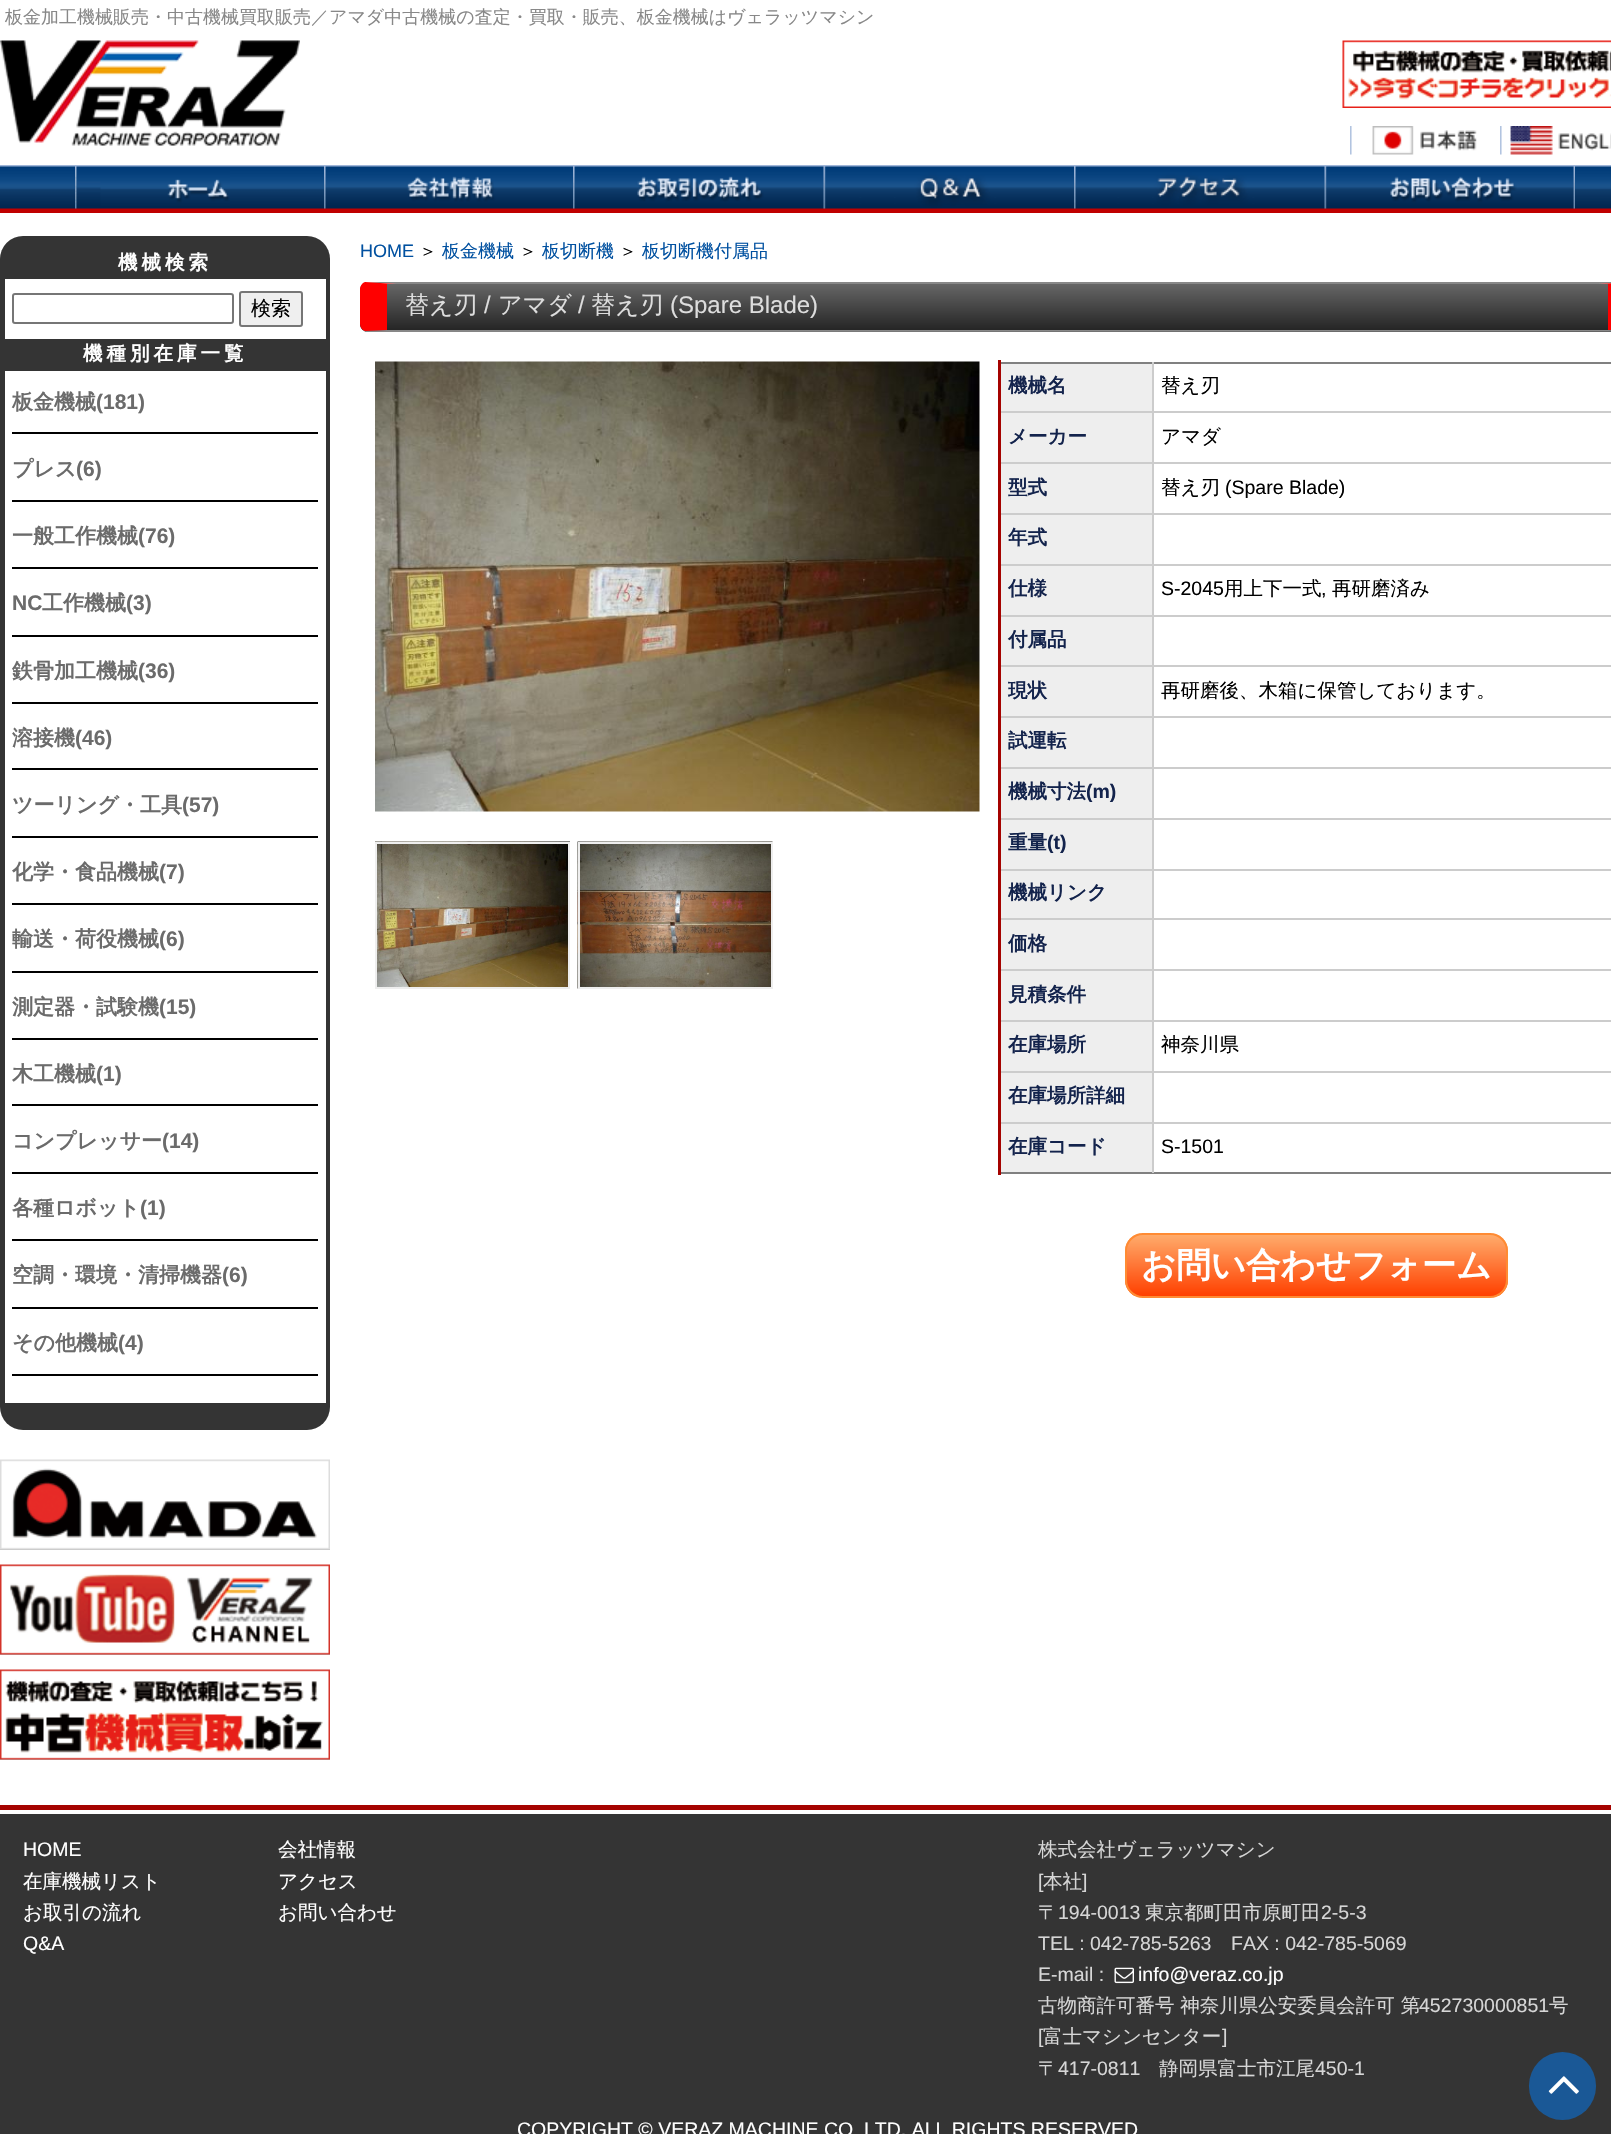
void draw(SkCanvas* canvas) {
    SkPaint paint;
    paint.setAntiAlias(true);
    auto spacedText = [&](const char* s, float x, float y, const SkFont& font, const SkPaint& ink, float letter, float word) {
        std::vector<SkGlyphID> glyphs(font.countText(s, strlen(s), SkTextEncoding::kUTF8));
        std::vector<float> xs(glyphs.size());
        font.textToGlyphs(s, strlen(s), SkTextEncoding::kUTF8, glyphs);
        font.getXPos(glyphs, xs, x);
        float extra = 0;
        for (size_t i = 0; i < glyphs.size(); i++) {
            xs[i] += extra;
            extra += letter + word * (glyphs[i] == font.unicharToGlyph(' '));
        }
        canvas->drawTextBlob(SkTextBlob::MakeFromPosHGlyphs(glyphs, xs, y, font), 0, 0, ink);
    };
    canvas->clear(0xFFFFFFFF);
    SkFont font1(fontMgr->matchFamilyStyle("WenQuanYi Zen Hei", SkFontStyle(500, SkFontStyle::kNormal_Width, SkFontStyle::kUpright_Slant)), 18);
    font1.setSubpixel(true);
    paint.setColor(0xFF888888);
    canvas->drawString("板金加工機械販売・中古機械買取販売／アマダ中古機械の査定・買取・販売、板金機械はヴェラッツマシン", 5, 23, font1, paint);
    canvas->drawImageRect(SkImages::DeferredFromEncodedData(SkData::MakeFromFileName("img1.png")), SkRect::MakeXYWH(0, 40, 300, 106), SkSamplingOptions());
    canvas->drawImageRect(SkImages::DeferredFromEncodedData(SkData::MakeFromFileName("img2.png")), SkRect::MakeXYWH(1342, 40, 269, 68), SkSamplingOptions());
    canvas->drawImageRect(SkImages::DeferredFromEncodedData(SkData::MakeFromFileName("img3.png")), SkRect::MakeXYWH(1350, 126, 127, 29), SkSamplingOptions());
    canvas->drawImageRect(SkImages::DeferredFromEncodedData(SkData::MakeFromFileName("img4.png")), SkRect::MakeXYWH(1500, 126, 111, 29), SkSamplingOptions());
    canvas->drawImageRect(SkImages::DeferredFromEncodedData(SkData::MakeFromFileName("img5.png")), SkRect::MakeXYWH(0, 165, 1611, 48), SkSamplingOptions());
    canvas->drawImageRect(SkImages::DeferredFromEncodedData(SkData::MakeFromFileName("img6.png")), SkRect::MakeXYWH(75, 166, 155, 43), SkSamplingOptions());
    canvas->drawImageRect(SkImages::DeferredFromEncodedData(SkData::MakeFromFileName("img7.png")), SkRect::MakeXYWH(324, 166, 249, 43), SkSamplingOptions());
    canvas->drawImageRect(SkImages::DeferredFromEncodedData(SkData::MakeFromFileName("img8.png")), SkRect::MakeXYWH(573, 166, 251, 43), SkSamplingOptions());
    canvas->drawImageRect(SkImages::DeferredFromEncodedData(SkData::MakeFromFileName("img9.png")), SkRect::MakeXYWH(823, 166, 251, 43), SkSamplingOptions());
    canvas->drawImageRect(SkImages::DeferredFromEncodedData(SkData::MakeFromFileName("img10.png")), SkRect::MakeXYWH(1074, 166, 251, 43), SkSamplingOptions());
    canvas->drawImageRect(SkImages::DeferredFromEncodedData(SkData::MakeFromFileName("img11.png")), SkRect::MakeXYWH(1324, 166, 251, 43), SkSamplingOptions());
    paint.setColor(0xFFA50300);
    canvas->drawRect(SkRect::MakeXYWH(0, 1805, 1611, 5), paint);
    paint.setColor(0xFF343434);
    canvas->drawRoundRect(SkRect::MakeXYWH(0, 236, 330, 1194), 23, 23, paint);
    SkFont font2(fontMgr->matchFamilyStyle("WenQuanYi Zen Hei", SkFontStyle::Bold()), 19.5f);
    font2.setSubpixel(true);
    paint.setColor(0xFFFFFFFF);
    spacedText("機械検索", 118, 269, font2, paint, 4, 0);
    canvas->drawRect(SkRect::MakeXYWH(5, 279, 321, 60), paint);
    paint.setStyle(SkPaint::kStroke_Style);
    paint.setStrokeWidth(2);
    paint.setColor(0xFF767676);
    canvas->drawRoundRect(SkRect::MakeXYWH(13, 294, 220, 29), 2, 2, paint);
    paint.setStyle(SkPaint::kFill_Style);
    paint.setColor(0xFFEFEFEF);
    canvas->drawRoundRect(SkRect::MakeXYWH(240, 292, 62, 34), 2, 2, paint);
    paint.setStyle(SkPaint::kStroke_Style);
    paint.setColor(0xFF767676);
    canvas->drawRoundRect(SkRect::MakeXYWH(240, 292, 62, 34), 2, 2, paint);
    SkFont font3(fontMgr->matchFamilyStyle("WenQuanYi Zen Hei", SkFontStyle(500, SkFontStyle::kNormal_Width, SkFontStyle::kUpright_Slant)), 20);
    font3.setSubpixel(true);
    paint.setStyle(SkPaint::kFill_Style);
    paint.setColor(0xFF000000);
    canvas->drawString("検索", 251, 315, font3, paint);
    paint.setColor(0xFFFFFFFF);
    spacedText("機種別在庫一覧", 83, 360, font2, paint, 4, 0);
    canvas->drawRect(SkRect::MakeXYWH(5, 371, 321, 1032), paint);
    paint.setColor(0xFF000000);
    canvas->drawRect(SkRect::MakeXYWH(12, 432, 306, 2), paint);
    SkFont font4(fontMgr->matchFamilyStyle("WenQuanYi Zen Hei", SkFontStyle::Bold()), 21);
    font4.setSubpixel(true);
    paint.setColor(0xFF6B6B6B);
    canvas->drawString("板金機械", 12, 409, font4, paint);
    SkFont font5(fontMgr->matchFamilyStyle("Liberation Sans", SkFontStyle::Bold()), 21);
    font5.setSubpixel(true);
    canvas->drawString("(181)", 96, 409, font5, paint);
    paint.setColor(0xFF000000);
    canvas->drawRect(SkRect::MakeXYWH(12, 500, 306, 2), paint);
    paint.setColor(0xFF6B6B6B);
    canvas->drawString("プレス", 12, 476, font4, paint);
    canvas->drawString("(6)", 76, 476, font5, paint);
    paint.setColor(0xFF000000);
    canvas->drawRect(SkRect::MakeXYWH(12, 567, 306, 2), paint);
    paint.setColor(0xFF6B6B6B);
    canvas->drawString("一般工作機械", 12, 543, font4, paint);
    canvas->drawString("(76)", 138, 543, font5, paint);
    paint.setColor(0xFF000000);
    canvas->drawRect(SkRect::MakeXYWH(12, 635, 306, 2), paint);
    paint.setColor(0xFF6B6B6B);
    canvas->drawString("NC", 12, 610, font5, paint);
    canvas->drawString("工作機械", 42, 610, font4, paint);
    canvas->drawString("(3)", 126, 610, font5, paint);
    paint.setColor(0xFF000000);
    canvas->drawRect(SkRect::MakeXYWH(12, 702, 306, 2), paint);
    paint.setColor(0xFF6B6B6B);
    canvas->drawString("鉄骨加工機械", 12, 678, font4, paint);
    canvas->drawString("(36)", 138, 678, font5, paint);
    paint.setColor(0xFF000000);
    canvas->drawRect(SkRect::MakeXYWH(12, 768, 306, 2), paint);
    paint.setColor(0xFF6B6B6B);
    canvas->drawString("溶接機", 12, 745, font4, paint);
    canvas->drawString("(46)", 75, 745, font5, paint);
    paint.setColor(0xFF000000);
    canvas->drawRect(SkRect::MakeXYWH(12, 836, 306, 2), paint);
    paint.setColor(0xFF6B6B6B);
    canvas->drawString("ツーリング・工具", 12, 812, font4, paint);
    canvas->drawString("(57)", 182, 812, font5, paint);
    paint.setColor(0xFF000000);
    canvas->drawRect(SkRect::MakeXYWH(12, 903, 306, 2), paint);
    paint.setColor(0xFF6B6B6B);
    canvas->drawString("化学・食品機械", 12, 879, font4, paint);
    canvas->drawString("(7)", 159, 879, font5, paint);
    paint.setColor(0xFF000000);
    canvas->drawRect(SkRect::MakeXYWH(12, 971, 306, 2), paint);
    paint.setColor(0xFF6B6B6B);
    canvas->drawString("輸送・荷役機械", 12, 946, font4, paint);
    canvas->drawString("(6)", 159, 946, font5, paint);
    paint.setColor(0xFF000000);
    canvas->drawRect(SkRect::MakeXYWH(12, 1038, 306, 2), paint);
    paint.setColor(0xFF6B6B6B);
    canvas->drawString("測定器・試験機", 12, 1014, font4, paint);
    canvas->drawString("(15)", 159, 1014, font5, paint);
    paint.setColor(0xFF000000);
    canvas->drawRect(SkRect::MakeXYWH(12, 1104, 306, 2), paint);
    paint.setColor(0xFF6B6B6B);
    canvas->drawString("木工機械", 12, 1081, font4, paint);
    canvas->drawString("(1)", 96, 1081, font5, paint);
    paint.setColor(0xFF000000);
    canvas->drawRect(SkRect::MakeXYWH(12, 1172, 306, 2), paint);
    paint.setColor(0xFF6B6B6B);
    canvas->drawString("コンプレッサー", 12, 1148, font4, paint);
    canvas->drawString("(14)", 162, 1148, font5, paint);
    paint.setColor(0xFF000000);
    canvas->drawRect(SkRect::MakeXYWH(12, 1239, 306, 2), paint);
    paint.setColor(0xFF6B6B6B);
    canvas->drawString("各種ロボット", 12, 1215, font4, paint);
    canvas->drawString("(1)", 140, 1215, font5, paint);
    paint.setColor(0xFF000000);
    canvas->drawRect(SkRect::MakeXYWH(12, 1307, 306, 2), paint);
    paint.setColor(0xFF6B6B6B);
    canvas->drawString("空調・環境・清掃機器", 12, 1282, font4, paint);
    canvas->drawString("(6)", 222, 1282, font5, paint);
    paint.setColor(0xFF000000);
    canvas->drawRect(SkRect::MakeXYWH(12, 1374, 306, 2), paint);
    paint.setColor(0xFF6B6B6B);
    canvas->drawString("その他機械", 12, 1350, font4, paint);
    canvas->drawString("(4)", 118, 1350, font5, paint);
    paint.setColor(0xFFBABABA);
    canvas->drawRect(SkRect::MakeXYWH(0, 1549, 330, 1), paint);
    canvas->drawImageRect(SkImages::DeferredFromEncodedData(SkData::MakeFromFileName("img12.png")), SkRect::MakeXYWH(0, 1459, 330, 91), SkSamplingOptions());
    canvas->drawRect(SkRect::MakeXYWH(0, 1654, 330, 1), paint);
    canvas->drawImageRect(SkImages::DeferredFromEncodedData(SkData::MakeFromFileName("img13.png")), SkRect::MakeXYWH(0, 1564, 330, 91), SkSamplingOptions());
    canvas->drawRect(SkRect::MakeXYWH(0, 1759, 330, 1), paint);
    canvas->drawImageRect(SkImages::DeferredFromEncodedData(SkData::MakeFromFileName("img14.png")), SkRect::MakeXYWH(0, 1669, 330, 91), SkSamplingOptions());
    SkFont font6(fontMgr->matchFamilyStyle("Liberation Sans", SkFontStyle::Normal()), 18);
    font6.setSubpixel(true);
    paint.setColor(0xFF0050A0);
    canvas->drawString("HOME", 360, 257, font6, paint);
    paint.setColor(0xFF000000);
    canvas->drawString("＞", 419, 257, font1, paint);
    paint.setColor(0xFF0050A0);
    canvas->drawString("板金機械", 442, 257, font1, paint);
    paint.setColor(0xFF000000);
    canvas->drawString("＞", 519, 257, font1, paint);
    paint.setColor(0xFF0050A0);
    canvas->drawString("板切断機", 542, 257, font1, paint);
    paint.setColor(0xFF000000);
    canvas->drawString("＞", 619, 257, font1, paint);
    paint.setColor(0xFF0050A0);
    canvas->drawString("板切断機付属品", 642, 257, font1, paint);
    canvas->save();
    canvas->clipPath(SkPathBuilder().moveTo(368, 282).lineTo(1627, 282).cubicTo(1631.5f, 282, 1635, 285.5f, 1635, 290).lineTo(1635, 324).cubicTo(1635, 328.5f, 1631.5f, 332, 1627, 332).lineTo(368, 332).cubicTo(363.5f, 332, 360, 328.5f, 360, 324).lineTo(360, 290).cubicTo(360, 285.5f, 363.5f, 282, 368, 282).close().detach(), true);
    {
        const SkColor colors[] = {0xFF666666, 0xFF252525};
        const float stops[] = {0, 1};
        const SkPoint ends[] = {{387, 284}, {387, 330}};
        paint.setShader(SkGradientShader::MakeLinear(ends, colors, stops, 2, SkTileMode::kClamp));
        paint.setAlpha(255);
    }
    canvas->drawRect(SkRect::MakeXYWH(360, 284, 1248, 46), paint);
    {
        const SkColor colors[] = {0xFF666666, 0xFF252525};
        const float stops[] = {0, 1};
        const SkPoint ends[] = {{387, 330}, {387, 377}};
        paint.setShader(SkGradientShader::MakeLinear(ends, colors, stops, 2, SkTileMode::kClamp));
        paint.setAlpha(255);
    }
    canvas->drawRect(SkRect::MakeXYWH(360, 330, 1251, 2), paint);
    canvas->restore();
    paint.setShader(nullptr);
    paint.setColor(0xFF888888);
    canvas->drawPath(SkPathBuilder().moveTo(368, 282).lineTo(365, 282).lineTo(396, 284).lineTo(1599, 284).lineTo(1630, 282).lineTo(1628, 282).close().detach(), paint);
    paint.setColor(0xFFFF0000);
    canvas->drawPath(SkPathBuilder().moveTo(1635, 324).lineTo(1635, 290).cubicTo(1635, 286, 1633, 283, 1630, 282).lineTo(1599, 284).lineTo(1608, 284).lineTo(1608, 330).lineTo(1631, 331).cubicTo(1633, 330, 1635, 327, 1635, 324).close().detach(), paint);
    paint.setColor(0xFF888888);
    canvas->drawPath(SkPathBuilder().moveTo(365, 332).lineTo(365, 331).lineTo(387, 330).lineTo(1608, 330).lineTo(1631, 331).close().detach(), paint);
    paint.setColor(0xFFFF0000);
    canvas->drawPath(SkPathBuilder().moveTo(387, 284).lineTo(396, 284).lineTo(365, 282).cubicTo(362, 283, 360, 286, 360, 290).lineTo(360, 324).cubicTo(360, 327, 362, 330, 365, 331).lineTo(387, 330).close().detach(), paint);
    SkFont font7(fontMgr->matchFamilyStyle("WenQuanYi Zen Hei", SkFontStyle(500, SkFontStyle::kNormal_Width, SkFontStyle::kUpright_Slant)), 24);
    font7.setSubpixel(true);
    paint.setColor(0xFFDDDDDD);
    canvas->drawString("替え刃", 405, 313, font7, paint);
    SkFont font8(fontMgr->matchFamilyStyle("Liberation Sans", SkFontStyle::Normal()), 24);
    font8.setSubpixel(true);
    canvas->drawString("/", 484, 313, font8, paint);
    canvas->drawString("アマダ", 498, 313, font7, paint);
    canvas->drawString("/", 578, 313, font8, paint);
    canvas->drawString("替え刃", 591, 313, font7, paint);
    canvas->drawString("(Spare Blade)", 670, 313, font8, paint);
    canvas->drawImageRect(SkImages::DeferredFromEncodedData(SkData::MakeFromFileName("img15.png")), SkRect::MakeXYWH(375, 361, 605, 451), SkSamplingOptions());
    canvas->drawImageRect(SkImages::DeferredFromEncodedData(SkData::MakeFromFileName("img16.png")), SkRect::MakeXYWH(375, 841, 195, 146), SkSamplingOptions());
    paint.setStyle(SkPaint::kStroke_Style);
    paint.setColor(0xFFEEEEEE);
    canvas->drawRect(SkRect::MakeXYWH(376, 843, 193, 145), paint);
    canvas->drawImageRect(SkImages::DeferredFromEncodedData(SkData::MakeFromFileName("img17.png")), SkRect::MakeXYWH(577, 841, 196, 148), SkSamplingOptions());
    canvas->drawRect(SkRect::MakeXYWH(579, 843, 193, 145), paint);
    paint.setStyle(SkPaint::kFill_Style);
    paint.setColor(0xFF808080);
    canvas->drawRect(SkRect::MakeXYWH(998, 362, 613, 2), paint);
    canvas->drawRect(SkRect::MakeXYWH(998, 1172, 613, 2), paint);
    paint.setColor(0xFFEEEEEE);
    canvas->drawRect(SkRect::MakeXYWH(1001, 364, 151, 47), paint);
    paint.setColor(0xFF13234C);
    canvas->drawString("機械名", 1008, 392, font2, paint);
    SkFont font9(fontMgr->matchFamilyStyle("WenQuanYi Zen Hei", SkFontStyle(500, SkFontStyle::kNormal_Width, SkFontStyle::kUpright_Slant)), 19.5f);
    font9.setSubpixel(true);
    paint.setColor(0xFF000000);
    canvas->drawString("替え刃", 1161, 392, font9, paint);
    paint.setColor(0xFFEEEEEE);
    canvas->drawRect(SkRect::MakeXYWH(1001, 413, 151, 49), paint);
    paint.setColor(0xFFCCCCCC);
    canvas->drawRect(SkRect::MakeXYWH(999, 411, 612, 2), paint);
    canvas->drawRect(SkRect::MakeXYWH(999, 462, 612, 2), paint);
    canvas->drawRect(SkRect::MakeXYWH(999, 513, 612, 2), paint);
    canvas->drawRect(SkRect::MakeXYWH(999, 564, 612, 2), paint);
    canvas->drawRect(SkRect::MakeXYWH(999, 615, 612, 2), paint);
    canvas->drawRect(SkRect::MakeXYWH(999, 665, 612, 2), paint);
    canvas->drawRect(SkRect::MakeXYWH(999, 716, 612, 2), paint);
    canvas->drawRect(SkRect::MakeXYWH(999, 767, 612, 2), paint);
    canvas->drawRect(SkRect::MakeXYWH(999, 818, 612, 2), paint);
    canvas->drawRect(SkRect::MakeXYWH(999, 869, 612, 2), paint);
    canvas->drawRect(SkRect::MakeXYWH(999, 918, 612, 2), paint);
    canvas->drawRect(SkRect::MakeXYWH(999, 969, 612, 2), paint);
    canvas->drawRect(SkRect::MakeXYWH(999, 1020, 612, 2), paint);
    canvas->drawRect(SkRect::MakeXYWH(999, 1071, 612, 2), paint);
    canvas->drawRect(SkRect::MakeXYWH(999, 1122, 612, 2), paint);
    canvas->drawRect(SkRect::MakeXYWH(1152, 1122, 2, 51), paint);
    canvas->drawRect(SkRect::MakeXYWH(1152, 1071, 2, 53), paint);
    canvas->drawRect(SkRect::MakeXYWH(1152, 1020, 2, 53), paint);
    canvas->drawRect(SkRect::MakeXYWH(1152, 969, 2, 53), paint);
    canvas->drawRect(SkRect::MakeXYWH(1152, 918, 2, 53), paint);
    canvas->drawRect(SkRect::MakeXYWH(1152, 869, 2, 51), paint);
    canvas->drawRect(SkRect::MakeXYWH(1152, 818, 2, 52), paint);
    canvas->drawRect(SkRect::MakeXYWH(1152, 767, 2, 52), paint);
    canvas->drawRect(SkRect::MakeXYWH(1152, 716, 2, 52), paint);
    canvas->drawRect(SkRect::MakeXYWH(1152, 665, 2, 52), paint);
    canvas->drawRect(SkRect::MakeXYWH(1152, 615, 2, 51), paint);
    canvas->drawRect(SkRect::MakeXYWH(1152, 564, 2, 53), paint);
    canvas->drawRect(SkRect::MakeXYWH(1152, 513, 2, 53), paint);
    canvas->drawRect(SkRect::MakeXYWH(1152, 462, 2, 53), paint);
    canvas->drawRect(SkRect::MakeXYWH(1152, 362, 2, 102), paint);
    paint.setColor(0xFF13234C);
    canvas->drawString("メーカー", 1008, 443, font2, paint);
    paint.setColor(0xFF000000);
    canvas->drawString("アマダ", 1161, 443, font9, paint);
    paint.setColor(0xFFEEEEEE);
    canvas->drawRect(SkRect::MakeXYWH(1001, 464, 151, 49), paint);
    paint.setColor(0xFF13234C);
    canvas->drawString("型式", 1008, 494, font2, paint);
    paint.setColor(0xFF000000);
    canvas->drawString("替え刃", 1161, 494, font9, paint);
    SkFont font10(fontMgr->matchFamilyStyle("Liberation Sans", SkFontStyle::Normal()), 19.5f);
    font10.setSubpixel(true);
    canvas->drawString("(Spare Blade)", 1225, 494, font10, paint);
    paint.setColor(0xFFEEEEEE);
    canvas->drawRect(SkRect::MakeXYWH(1001, 515, 151, 49), paint);
    paint.setColor(0xFF13234C);
    canvas->drawString("年式", 1008, 544, font2, paint);
    paint.setColor(0xFFEEEEEE);
    canvas->drawRect(SkRect::MakeXYWH(1001, 566, 151, 49), paint);
    paint.setColor(0xFF13234C);
    canvas->drawString("仕様", 1008, 595, font2, paint);
    paint.setColor(0xFF000000);
    canvas->drawString("S-2045", 1161, 595, font10, paint);
    canvas->drawString("用上下一式", 1224, 595, font9, paint);
    canvas->drawString(",", 1321, 595, font10, paint);
    canvas->drawString("再研磨済み", 1332, 595, font9, paint);
    paint.setColor(0xFFEEEEEE);
    canvas->drawRect(SkRect::MakeXYWH(1001, 617, 151, 48), paint);
    paint.setColor(0xFF13234C);
    canvas->drawString("付属品", 1008, 646, font2, paint);
    paint.setColor(0xFFEEEEEE);
    canvas->drawRect(SkRect::MakeXYWH(1001, 667, 151, 49), paint);
    paint.setColor(0xFF13234C);
    canvas->drawString("現状", 1008, 697, font2, paint);
    paint.setColor(0xFF000000);
    canvas->drawString("再研磨後、木箱に保管しております。", 1161, 697, font9, paint);
    paint.setColor(0xFFEEEEEE);
    canvas->drawRect(SkRect::MakeXYWH(1001, 718, 151, 49), paint);
    paint.setColor(0xFF13234C);
    canvas->drawString("試運転", 1008, 747, font2, paint);
    paint.setColor(0xFFEEEEEE);
    canvas->drawRect(SkRect::MakeXYWH(1001, 769, 151, 49), paint);
    paint.setColor(0xFF13234C);
    canvas->drawString("機械寸法", 1008, 798, font2, paint);
    SkFont font11(fontMgr->matchFamilyStyle("Liberation Sans", SkFontStyle::Bold()), 19.5f);
    font11.setSubpixel(true);
    canvas->drawString("(m)", 1086, 798, font11, paint);
    paint.setColor(0xFFEEEEEE);
    canvas->drawRect(SkRect::MakeXYWH(1001, 820, 151, 49), paint);
    paint.setColor(0xFF13234C);
    canvas->drawString("重量", 1008, 849, font2, paint);
    canvas->drawString("(t)", 1047, 849, font11, paint);
    paint.setColor(0xFFEEEEEE);
    canvas->drawRect(SkRect::MakeXYWH(1001, 871, 151, 47), paint);
    paint.setColor(0xFF13234C);
    canvas->drawString("機械リンク", 1008, 899, font2, paint);
    paint.setColor(0xFFEEEEEE);
    canvas->drawRect(SkRect::MakeXYWH(1001, 920, 151, 49), paint);
    paint.setColor(0xFF13234C);
    canvas->drawString("価格", 1008, 950, font2, paint);
    paint.setColor(0xFFEEEEEE);
    canvas->drawRect(SkRect::MakeXYWH(1001, 971, 151, 49), paint);
    paint.setColor(0xFF13234C);
    canvas->drawString("見積条件", 1008, 1001, font2, paint);
    paint.setColor(0xFFEEEEEE);
    canvas->drawRect(SkRect::MakeXYWH(1001, 1022, 151, 49), paint);
    paint.setColor(0xFF13234C);
    canvas->drawString("在庫場所", 1008, 1051, font2, paint);
    paint.setColor(0xFF000000);
    canvas->drawString("神奈川県", 1161, 1051, font9, paint);
    paint.setColor(0xFFEEEEEE);
    canvas->drawRect(SkRect::MakeXYWH(1001, 1073, 151, 49), paint);
    paint.setColor(0xFF13234C);
    canvas->drawString("在庫場所詳細", 1008, 1102, font2, paint);
    paint.setColor(0xFFEEEEEE);
    canvas->drawRect(SkRect::MakeXYWH(1001, 1124, 151, 48), paint);
    paint.setColor(0xFFA50300);
    canvas->drawRect(SkRect::MakeXYWH(998, 360, 3, 815), paint);
    paint.setColor(0xFF13234C);
    canvas->drawString("在庫コード", 1008, 1153, font2, paint);
    paint.setColor(0xFF000000);
    canvas->drawString("S-1501", 1161, 1153, font10, paint);
    canvas->save();
    canvas->clipPath(SkPathBuilder().moveTo(1143, 1233).lineTo(1490, 1233).cubicTo(1500, 1233, 1508, 1241, 1508, 1251).lineTo(1508, 1280).cubicTo(1508, 1290, 1500, 1298, 1490, 1298).lineTo(1143, 1298).cubicTo(1133, 1298, 1125, 1290, 1125, 1280).lineTo(1125, 1251).cubicTo(1125, 1241, 1133, 1233, 1143, 1233).close().detach(), true);
    {
        const SkColor colors[] = {0xFFFFAB6B, 0xFFFF4000};
        const float stops[] = {0, 1};
        const SkPoint ends[] = {{1316, 1235}, {1316, 1296}};
        paint.setShader(SkGradientShader::MakeLinear(ends, colors, stops, 2, SkTileMode::kClamp));
        paint.setAlpha(255);
    }
    canvas->drawRect(SkRect::MakeXYWH(1125, 1235, 383, 61), paint);
    canvas->restore();
    paint.setStyle(SkPaint::kStroke_Style);
    paint.setShader(nullptr);
    paint.setColor(0xFFFF8B33);
    canvas->drawRoundRect(SkRect::MakeXYWH(1126, 1234, 381, 63), 17, 17, paint);
    SkFont font12(fontMgr->matchFamilyStyle("WenQuanYi Zen Hei", SkFontStyle::Bold()), 34.5f);
    font12.setSubpixel(true);
    paint.setStyle(SkPaint::kFill_Style);
    paint.setColor(0xFFFFFFFF);
    canvas->drawString("お問い合わせフォーム", 1141, 1277, font12, paint);
    paint.setColor(0xFF343434);
    canvas->drawRect(SkRect::MakeXYWH(0, 1814, 1611, 320), paint);
    paint.setColor(0xFFFFFFFF);
    canvas->drawString("HOME", 23, 1856, font10, paint);
    canvas->drawString("在庫機械リスト", 23, 1888, font9, paint);
    canvas->drawString("お取引の流れ", 23, 1919, font9, paint);
    canvas->drawString("Q&A", 23, 1950, font10, paint);
    canvas->drawString("会社情報", 278, 1856, font9, paint);
    canvas->drawString("アクセス", 278, 1888, font9, paint);
    canvas->drawString("お問い合わせ", 278, 1919, font9, paint);
    paint.setColor(0xFFD6D6D6);
    canvas->drawString("株式会社ヴェラッツマシン", 1038, 1856, font9, paint);
    canvas->drawString("[", 1038, 1888, font10, paint);
    canvas->drawString("本社", 1043, 1888, font9, paint);
    canvas->drawString("]", 1082, 1888, font10, paint);
    canvas->drawString("〒", 1038, 1919, font9, paint);
    canvas->drawString("194-0013", 1058, 1919, font10, paint);
    canvas->drawString("東京都町田市原町田", 1145, 1919, font9, paint);
    canvas->drawString("2-5-3", 1321, 1919, font10, paint);
    canvas->drawString("TEL : 042-785-5263", 1038, 1950, font10, paint);
    canvas->drawString("FAX : 042-785-5069", 1231, 1950, font10, paint);
    canvas->drawString("E-mail :", 1038, 1981, font10, paint);
    canvas->drawImageRect(SkImages::DeferredFromEncodedData(SkData::MakeFromFileName("img18.png")), SkRect::MakeXYWH(1114, 1967, 20, 17), SkSamplingOptions());
    paint.setColor(0xFFFFFFFF);
    canvas->drawString("info@veraz.co.jp", 1138, 1981, font10, paint);
    paint.setColor(0xFFD6D6D6);
    canvas->drawString("古物商許可番号 神奈川県公安委員会許可 第", 1038, 2012, font9, paint);
    canvas->drawString("452730000851", 1419, 2012, font10, paint);
    canvas->drawString("号", 1549, 2012, font9, paint);
    canvas->drawString("[", 1038, 2043, font10, paint);
    canvas->drawString("富士マシンセンター", 1043, 2043, font9, paint);
    canvas->drawString("]", 1222, 2043, font10, paint);
    canvas->drawString("〒", 1038, 2075, font9, paint);
    canvas->drawString("417-0811", 1058, 2075, font10, paint);
    canvas->drawString("静岡県富士市江尾", 1159, 2075, font9, paint);
    canvas->drawString("450-1", 1315, 2075, font10, paint);
    paint.setColor(0xFFFFFFFF);
    canvas->drawString("COPYRIGHT © VERAZ MACHINE CO", 517, 2136, font10, paint);
    canvas->drawString("LTD. ALL RIGHTS RESERVED", 864, 2136, font10, paint);
    paint.setColor(0xFF1A5896);
    canvas->drawRoundRect(SkRect::MakeXYWH(1529, 2052, 67, 68), 33.5f, 33.5f, paint);
    canvas->drawImageRect(SkImages::DeferredFromEncodedData(SkData::MakeFromFileName("img19.png")), SkRect::MakeXYWH(1548, 2076, 31, 18), SkSamplingOptions());
}
